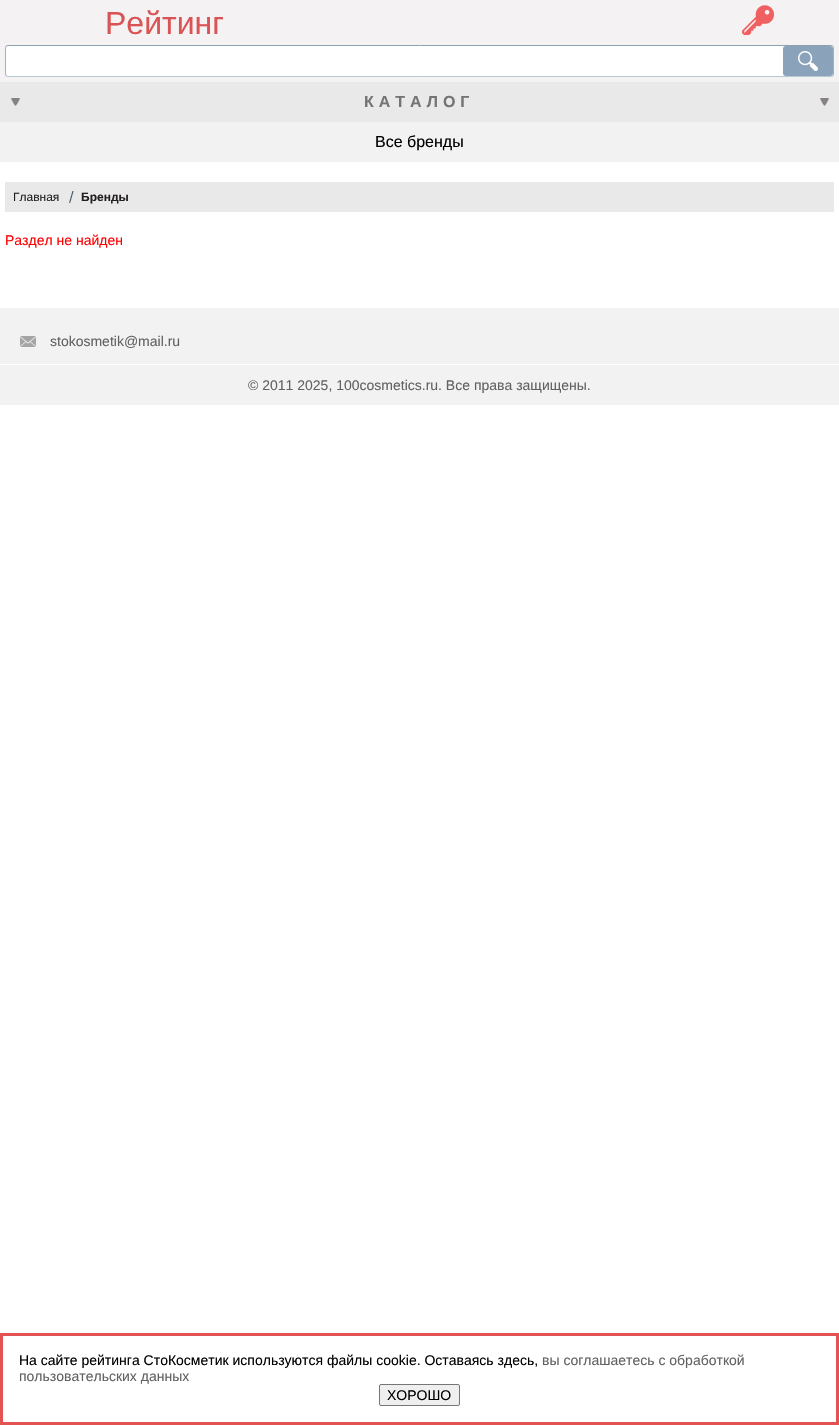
void draw(SkCanvas* canvas) {
    SkPaint paint;
    paint.setAntiAlias(true);
    auto spacedText = [&](const char* s, float x, float y, const SkFont& font, const SkPaint& ink, float letter, float word) {
        std::vector<SkGlyphID> glyphs(font.countText(s, strlen(s), SkTextEncoding::kUTF8));
        std::vector<float> xs(glyphs.size());
        font.textToGlyphs(s, strlen(s), SkTextEncoding::kUTF8, glyphs);
        font.getXPos(glyphs, xs, x);
        float extra = 0;
        for (size_t i = 0; i < glyphs.size(); i++) {
            xs[i] += extra;
            extra += letter + word * (glyphs[i] == font.unicharToGlyph(' '));
        }
        canvas->drawTextBlob(SkTextBlob::MakeFromPosHGlyphs(glyphs, xs, y, font), 0, 0, ink);
    };
    canvas->clear(0xFFFFFFFF);
    paint.setColor(0xFFF4F2F2);
    canvas->drawRect(SkRect::MakeXYWH(0, 0, 839, 82), paint);
    SkFont font1(fontMgr->matchFamilyStyle("Liberation Sans", SkFontStyle::Normal()), 32);
    font1.setSubpixel(true);
    paint.setColor(0xFFDA5355);
    canvas->drawString("Рейтинг", 105, 34, font1, paint);
    canvas->drawImageRect(SkImages::DeferredFromEncodedData(SkData::MakeFromFileName("img1.png")), SkRect::MakeXYWH(742, 5, 32, 30), SkSamplingOptions());
    paint.setColor(0xFFFFFFFF);
    canvas->drawRoundRect(SkRect::MakeXYWH(5, 45, 829, 32), 3, 3, paint);
    paint.setStyle(SkPaint::kStroke_Style);
    paint.setStrokeWidth(1);
    paint.setColor(0xFF8CA3AE);
    canvas->drawPath(SkPathBuilder().moveTo(6, 46).lineTo(8, 45.5f).lineTo(831, 45.5f).lineTo(833, 46).detach(), paint);
    paint.setColor(0xFFA0B4BE);
    canvas->drawPath(SkPathBuilder().moveTo(833, 46).cubicTo(833, 46.5f, 833.5f, 47.5f, 833.5f, 48).lineTo(833.5f, 74).cubicTo(833.5f, 74.5f, 833, 75.5f, 833, 76).detach(), paint);
    paint.setColor(0xFFB6C8D1);
    canvas->drawPath(SkPathBuilder().moveTo(833, 76).lineTo(831, 76.5f).lineTo(8, 76.5f).lineTo(6, 76).detach(), paint);
    paint.setColor(0xFFA0B4BE);
    canvas->drawPath(SkPathBuilder().moveTo(6, 76).cubicTo(6, 75.5f, 5.5f, 74.5f, 5.5f, 74).lineTo(5.5f, 48).cubicTo(5.5f, 47.5f, 6, 46.5f, 6, 46).detach(), paint);
    paint.setStyle(SkPaint::kFill_Style);
    paint.setColor(0xFF8AA2BA);
    canvas->drawRoundRect(SkRect::MakeXYWH(783, 46, 50, 30), 3, 3, paint);
    canvas->drawImageRect(SkImages::DeferredFromEncodedData(SkData::MakeFromFileName("img2.png")), SkRect::MakeXYWH(798, 51, 20, 20), SkSamplingOptions());
    paint.setColor(0xFFE9E9E9);
    canvas->drawRect(SkRect::MakeXYWH(0, 82, 839, 40), paint);
    canvas->drawImageRect(SkImages::DeferredFromEncodedData(SkData::MakeFromFileName("img3.png")), SkRect::MakeXYWH(11, 98, 9, 8), SkSamplingOptions());
    SkFont font2(fontMgr->matchFamilyStyle("Liberation Sans", SkFontStyle::Bold()), 16);
    font2.setSubpixel(true);
    paint.setColor(0xFF757373);
    spacedText("КАТАЛОГ", 364, 107, font2, paint, 5, 0);
    canvas->drawImageRect(SkImages::DeferredFromEncodedData(SkData::MakeFromFileName("img3.png")), SkRect::MakeXYWH(820, 98, 9, 8), SkSamplingOptions());
    paint.setColor(0xFFF2F2F2);
    canvas->drawRect(SkRect::MakeXYWH(0, 122, 839, 40), paint);
    SkFont font3(fontMgr->matchFamilyStyle("Liberation Sans", SkFontStyle::Normal()), 16);
    font3.setSubpixel(true);
    paint.setColor(0xFF000000);
    canvas->drawString("Все бренды", 375, 147, font3, paint);
    paint.setColor(0xFFE9E9E9);
    canvas->drawRect(SkRect::MakeXYWH(5, 182, 829, 30), paint);
    SkFont font4(fontMgr->matchFamilyStyle("Liberation Sans", SkFontStyle::Normal()), 12);
    font4.setSubpixel(true);
    paint.setColor(0xFF231F20);
    canvas->drawString("Главная", 13, 201, font4, paint);
    canvas->drawImageRect(SkImages::DeferredFromEncodedData(SkData::MakeFromFileName("img4.png")), SkRect::MakeXYWH(69, 191, 5, 12), SkSamplingOptions());
    SkFont font5(fontMgr->matchFamilyStyle("Liberation Sans", SkFontStyle::Bold()), 12);
    font5.setSubpixel(true);
    canvas->drawString("Бренды", 81, 201, font5, paint);
    SkFont font6(fontMgr->matchFamilyStyle("Liberation Sans", SkFontStyle::Normal()), 14);
    font6.setSubpixel(true);
    paint.setColor(0xFFFF0000);
    canvas->drawString("Раздел не найден", 5, 245, font6, paint);
    paint.setColor(0xFFF2F2F2);
    canvas->drawRect(SkRect::MakeXYWH(0, 308, 839, 97), paint);
    canvas->drawImageRect(SkImages::DeferredFromEncodedData(SkData::MakeFromFileName("img5.png")), SkRect::MakeXYWH(20, 336, 16, 11), SkSamplingOptions());
    paint.setColor(0xFF616161);
    canvas->drawString("stokosmetik@mail.ru", 50, 346, font6, paint);
    paint.setColor(0xFFFFFFFF);
    canvas->drawRect(SkRect::MakeXYWH(0, 364, 839, 1), paint);
    paint.setColor(0xFF616161);
    canvas->drawString("© 2011 2025, 100cosmetics.ru. Все права защищены.", 248, 390, font6, paint);
    paint.setStyle(SkPaint::kStroke_Style);
    paint.setStrokeWidth(3);
    paint.setColor(0xFFE35353);
    canvas->drawRect(SkRect::MakeXYWH(1.5f, 1334.5f, 836, 89), paint);
    paint.setStyle(SkPaint::kFill_Style);
    paint.setColor(0xFF000000);
    canvas->drawString("На сайте рейтинга СтоКосметик используются файлы cookie. Оставаясь здесь,", 19, 1365, font6, paint);
    paint.setColor(0xFF616161);
    canvas->drawString("вы соглашаетесь с обработкой", 542, 1365, font6, paint);
    canvas->drawString("пользовательских данных", 19, 1381, font6, paint);
    paint.setColor(0xFFEFEFEF);
    canvas->drawRoundRect(SkRect::MakeXYWH(379.5f, 1384.5f, 80, 21), 1.5f, 1.5f, paint);
    paint.setStyle(SkPaint::kStroke_Style);
    paint.setStrokeWidth(1);
    paint.setColor(0xFF767676);
    canvas->drawRoundRect(SkRect::MakeXYWH(379.5f, 1384.5f, 80, 21), 1.5f, 1.5f, paint);
    paint.setStyle(SkPaint::kFill_Style);
    paint.setColor(0xFF000000);
    canvas->drawString("ХОРОШО", 387, 1400, font6, paint);
}
